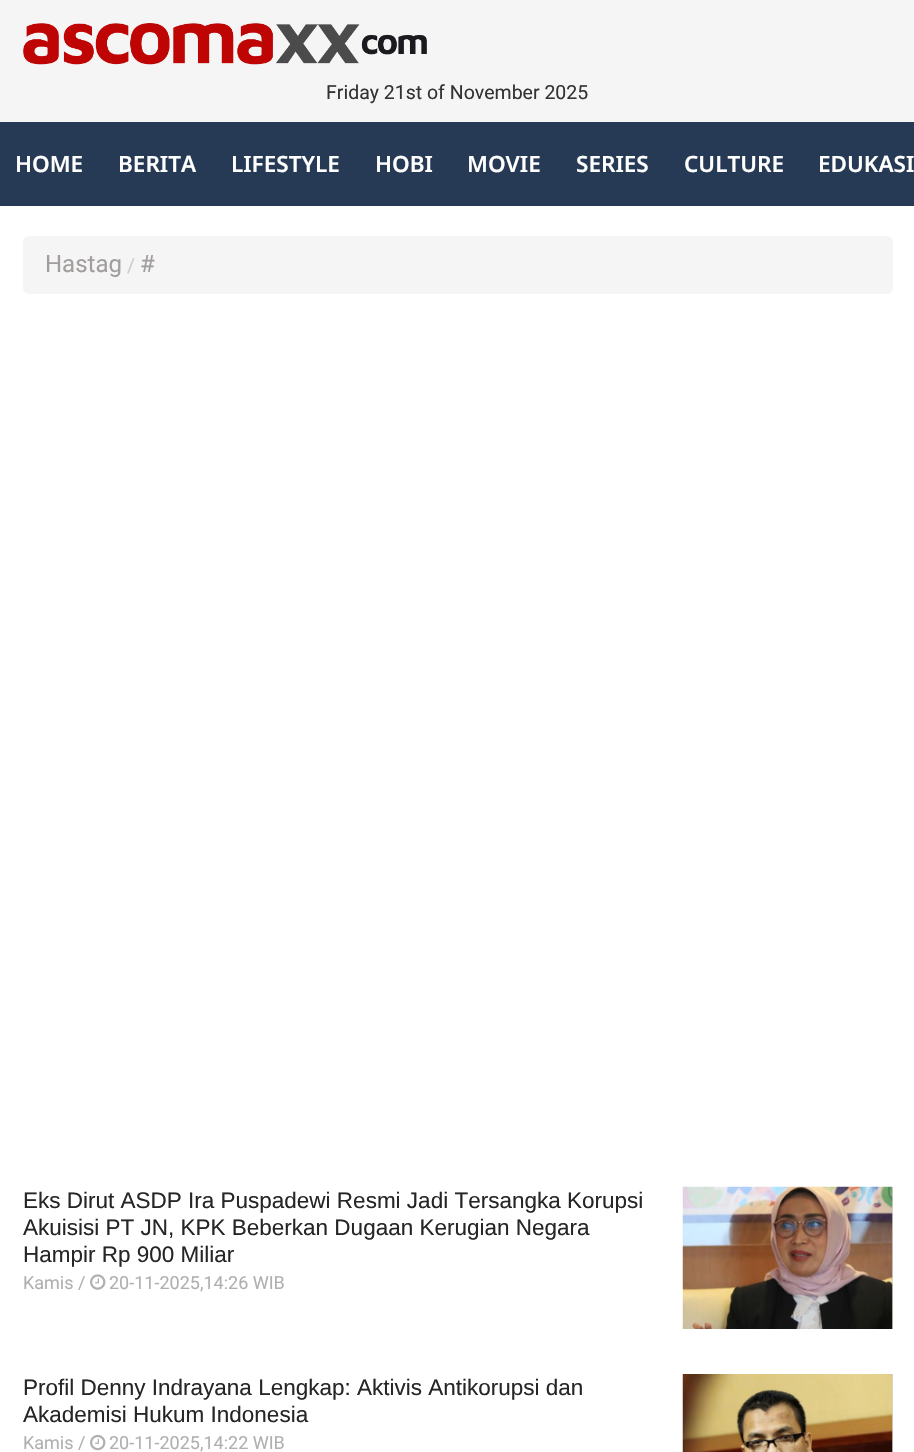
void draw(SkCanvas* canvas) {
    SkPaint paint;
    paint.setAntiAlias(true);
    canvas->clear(0xFFFFFFFF);
    paint.setColor(0xFFF5F5F5);
    canvas->drawRect(SkRect::MakeXYWH(0, 0, 914, 122), paint);
    canvas->drawImageRect(SkImages::DeferredFromEncodedData(SkData::MakeFromFileName("img1.png")), SkRect::MakeXYWH(23, 23, 404, 42), SkSamplingOptions());
    SkFont font1(fontMgr->matchFamilyStyle("Roboto", SkFontStyle::Normal()), 19.5f);
    font1.setSubpixel(true);
    paint.setColor(0xFF333333);
    canvas->drawString("Friday 21st of November 2025", 326, 99, font1, paint);
    paint.setColor(0xFF263A55);
    canvas->drawRect(SkRect::MakeXYWH(0, 122, 914, 84), paint);
    SkFont font2(fontMgr->matchFamilyStyle("Noto Sans", SkFontStyle(600, SkFontStyle::kNormal_Width, SkFontStyle::kUpright_Slant)), 22.5f);
    font2.setSubpixel(true);
    paint.setColor(0xFFFFFFFF);
    canvas->drawString("HOME", 15, 172, font2, paint);
    canvas->drawString("BERITA", 118, 172, font2, paint);
    canvas->drawString("LIFESTYLE", 231, 172, font2, paint);
    canvas->drawString("HOBI", 375, 172, font2, paint);
    canvas->drawString("MOVIE", 467, 172, font2, paint);
    canvas->drawString("SERIES", 576, 172, font2, paint);
    canvas->drawString("CULTURE", 684, 172, font2, paint);
    canvas->drawString("EDUKASI", 818, 172, font2, paint);
    paint.setColor(0xFFF5F5F5);
    canvas->drawRoundRect(SkRect::MakeXYWH(23, 236, 870, 58), 6, 6, paint);
    SkFont font3(fontMgr->matchFamilyStyle("Roboto", SkFontStyle::Normal()), 24);
    font3.setSubpixel(true);
    paint.setColor(0xFFA29E9E);
    canvas->drawString("Hastag", 45, 272, font3, paint);
    paint.setColor(0xFFCCCCCC);
    canvas->drawString("/", 127, 272, font1, paint);
    paint.setColor(0xFFA29E9E);
    canvas->drawString("#", 140, 272, font3, paint);
    SkFont font4(fontMgr->matchFamilyStyle("Liberation Sans", SkFontStyle::Normal()), 22.5f);
    font4.setSubpixel(true);
    paint.setColor(0xFF262626);
    canvas->drawString("Eks Dirut ASDP Ira Puspadewi Resmi Jadi Tersangka Korupsi", 23, 1208, font4, paint);
    canvas->drawString("Akuisisi PT JN, KPK Beberkan Dugaan Kerugian Negara", 23, 1235, font4, paint);
    canvas->drawString("Hampir Rp 900 Miliar", 23, 1262, font4, paint);
    SkFont font5(fontMgr->matchFamilyStyle("Roboto", SkFontStyle::Normal()), 18);
    font5.setSubpixel(true);
    paint.setColor(0xFFB1AFAF);
    canvas->drawString("Kamis /", 23, 1289, font5, paint);
    canvas->drawImageRect(SkImages::DeferredFromEncodedData(SkData::MakeFromFileName("img2.png")), SkRect::MakeXYWH(90, 1274, 16, 16), SkSamplingOptions());
    canvas->drawString("20-11-2025,14:26 WIB", 109, 1289, font5, paint);
    paint.setColor(0xFFD7D7D7);
    canvas->drawRect(SkRect::MakeXYWH(892, 1187, 1, 142), paint);
    canvas->drawImageRect(SkImages::DeferredFromEncodedData(SkData::MakeFromFileName("img3.png")), SkRect::MakeXYWH(682, 1186, 211, 143), SkSamplingOptions());
    paint.setColor(0xFF262626);
    canvas->drawString("Profil Denny Indrayana Lengkap: Aktivis Antikorupsi dan", 23, 1395, font4, paint);
    canvas->drawString("Akademisi Hukum Indonesia", 23, 1422, font4, paint);
    paint.setColor(0xFFB1AFAF);
    canvas->drawString("Kamis /", 23, 1449, font5, paint);
    canvas->drawImageRect(SkImages::DeferredFromEncodedData(SkData::MakeFromFileName("img4.png")), SkRect::MakeXYWH(90, 1434, 16, 17), SkSamplingOptions());
    canvas->drawString("20-11-2025,14:22 WIB", 109, 1449, font5, paint);
    paint.setColor(0xFFD7D7D7);
    canvas->drawRect(SkRect::MakeXYWH(892, 1374, 1, 78), paint);
    canvas->drawImageRect(SkImages::DeferredFromEncodedData(SkData::MakeFromFileName("img5.png")), SkRect::MakeXYWH(682, 1374, 211, 78), SkSamplingOptions());
}
